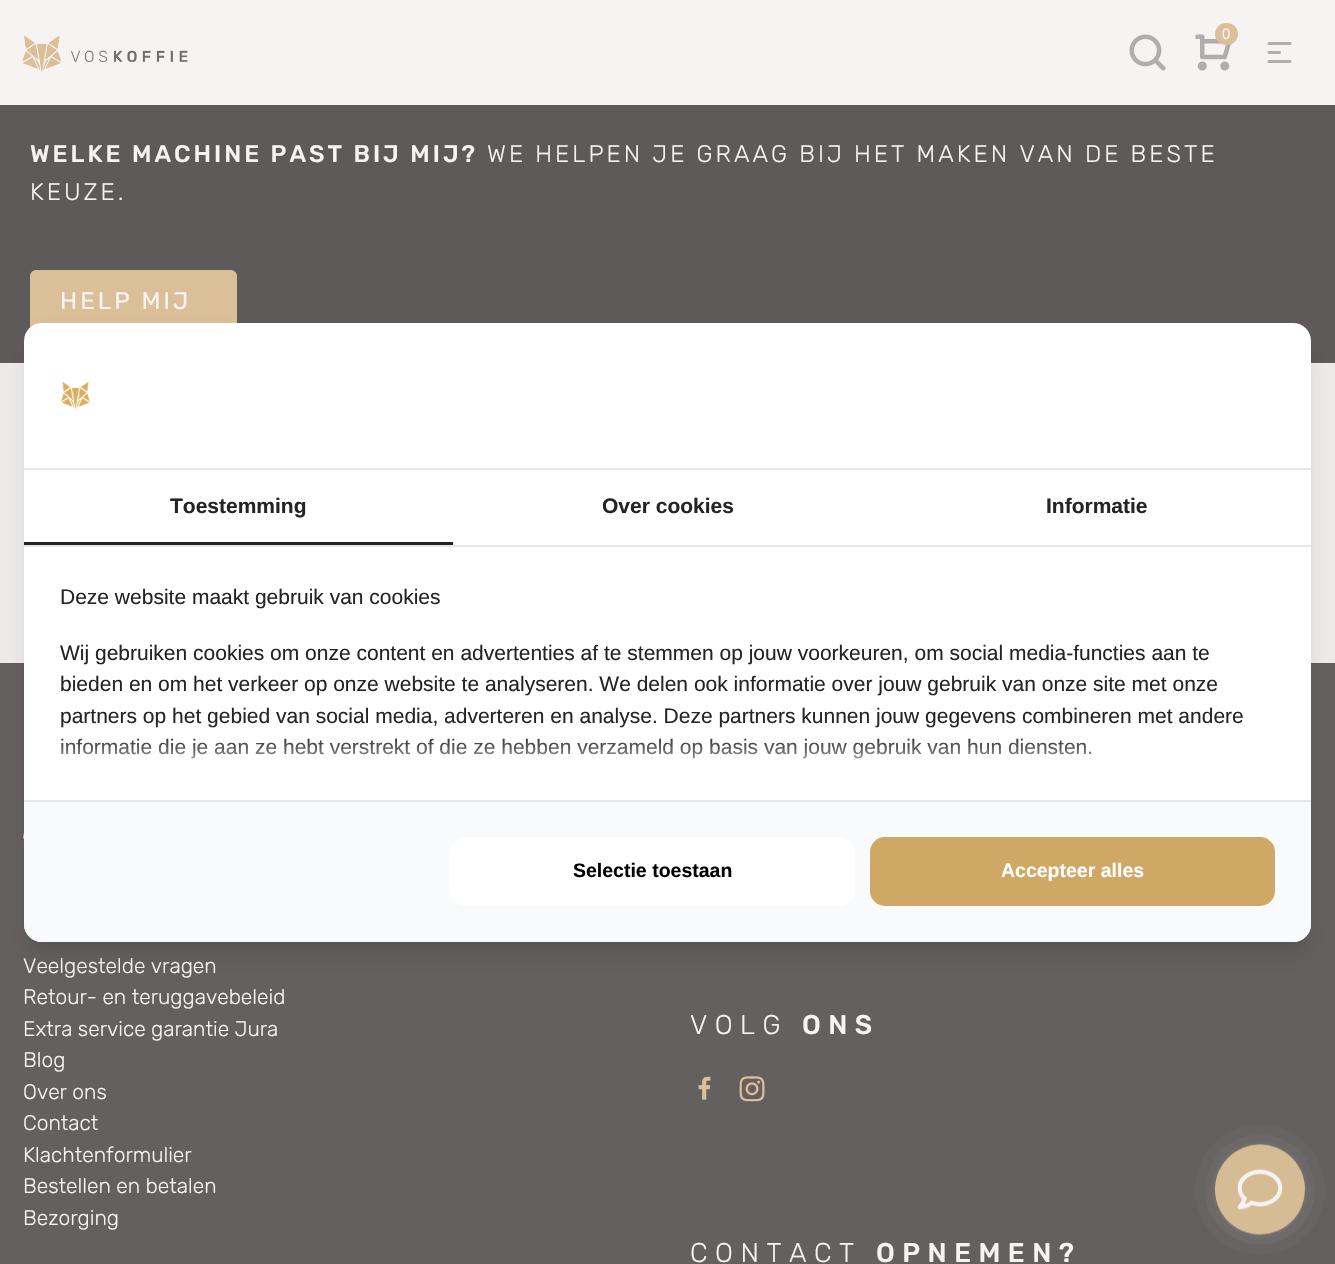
void draw(SkCanvas* canvas) {
    SkPaint paint;
    paint.setAntiAlias(true);
    auto spacedText = [&](const char* s, float x, float y, const SkFont& font, const SkPaint& ink, float letter, float word) {
        std::vector<SkGlyphID> glyphs(font.countText(s, strlen(s), SkTextEncoding::kUTF8));
        std::vector<float> xs(glyphs.size());
        font.textToGlyphs(s, strlen(s), SkTextEncoding::kUTF8, glyphs);
        font.getXPos(glyphs, xs, x);
        float extra = 0;
        for (size_t i = 0; i < glyphs.size(); i++) {
            xs[i] += extra;
            extra += letter + word * (glyphs[i] == font.unicharToGlyph(' '));
        }
        canvas->drawTextBlob(SkTextBlob::MakeFromPosHGlyphs(glyphs, xs, y, font), 0, 0, ink);
    };
    canvas->clear(0xFFEDEAEA);
    paint.setColor(0xFFF7F3F3);
    canvas->drawRect(SkRect::MakeXYWH(0, 0, 1335, 105), paint);
    canvas->drawImageRect(SkImages::DeferredFromEncodedData(SkData::MakeFromFileName("img1.png")), SkRect::MakeXYWH(22, 35, 166, 37), SkSamplingOptions());
    canvas->drawImageRect(SkImages::DeferredFromEncodedData(SkData::MakeFromFileName("img2.png")), SkRect::MakeXYWH(1129, 34, 37, 37), SkSamplingOptions());
    canvas->drawImageRect(SkImages::DeferredFromEncodedData(SkData::MakeFromFileName("img3.png")), SkRect::MakeXYWH(1195, 34, 36, 37), SkSamplingOptions());
    paint.setColor(0xFFDABF98);
    canvas->drawRoundRect(SkRect::MakeXYWH(1215, 23, 23, 22), 11, 11, paint);
    SkFont font1(fontMgr->matchFamilyStyle("Liberation Sans", SkFontStyle::Normal()), 15);
    font1.setSubpixel(true);
    paint.setColor(0xFFF7F3F3);
    canvas->drawString("0", 1222, 39, font1, paint);
    canvas->drawImageRect(SkImages::DeferredFromEncodedData(SkData::MakeFromFileName("img4.png")), SkRect::MakeXYWH(1267, 42, 25, 21), SkSamplingOptions());
    paint.setColor(0xFF5E5A5A);
    canvas->drawRect(SkRect::MakeXYWH(0, 105, 1335, 258), paint);
    SkFont font2(fontMgr->matchFamilyStyle("Rubik", SkFontStyle(500, SkFontStyle::kNormal_Width, SkFontStyle::kUpright_Slant)), 24);
    font2.setSubpixel(true);
    paint.setColor(0xFFF7F3F3);
    spacedText("WELKE MACHINE PAST BIJ MIJ?", 30, 162, font2, paint, 3, 0);
    SkFont font3(fontMgr->matchFamilyStyle("Rubik", SkFontStyle(300, SkFontStyle::kNormal_Width, SkFontStyle::kUpright_Slant)), 24);
    font3.setSubpixel(true);
    spacedText("WE HELPEN JE GRAAG BIJ HET MAKEN VAN DE BESTE", 487, 162, font3, paint, 3, 0);
    spacedText("KEUZE.", 30, 200, font3, paint, 3, 0);
    paint.setColor(0xFFDABF98);
    canvas->drawRoundRect(SkRect::MakeXYWH(30, 270, 207, 63), 6, 6, paint);
    SkFont font4(fontMgr->matchFamilyStyle("Rubik", SkFontStyle::Normal()), 24);
    font4.setSubpixel(true);
    paint.setColor(0xFFF7F3F3);
    spacedText("HELP MIJ", 60, 309, font4, paint, 3, 0);
    paint.setColor(0xFF646060);
    canvas->drawRect(SkRect::MakeXYWH(0, 663, 1335, 601), paint);
    canvas->drawImageRect(SkImages::DeferredFromEncodedData(SkData::MakeFromFileName("img5.png")), SkRect::MakeXYWH(23, 833, 1, 10), SkSamplingOptions());
    SkFont font5(fontMgr->matchFamilyStyle("Rubik", SkFontStyle(300, SkFontStyle::kNormal_Width, SkFontStyle::kUpright_Slant)), 21);
    font5.setSubpixel(true);
    paint.setColor(0xFFF7F3F3);
    canvas->drawString("Veelgestelde vragen", 23, 973, font5, paint);
    canvas->drawString("Retour- en teruggavebeleid", 23, 1004, font5, paint);
    canvas->drawString("Extra service garantie Jura", 23, 1036, font5, paint);
    canvas->drawString("Blog", 23, 1067, font5, paint);
    canvas->drawString("Over ons", 23, 1099, font5, paint);
    canvas->drawString("Contact", 23, 1130, font5, paint);
    canvas->drawString("Klachtenformulier", 23, 1162, font5, paint);
    canvas->drawString("Bestellen en betalen", 23, 1193, font5, paint);
    canvas->drawString("Bezorging", 23, 1225, font5, paint);
    SkFont font6(fontMgr->matchFamilyStyle("Rubik", SkFontStyle(300, SkFontStyle::kNormal_Width, SkFontStyle::kUpright_Slant)), 27);
    font6.setSubpixel(true);
    spacedText("VOLG", 690, 1034, font6, paint, 7.5f, 0);
    SkFont font7(fontMgr->matchFamilyStyle("Rubik", SkFontStyle(500, SkFontStyle::kNormal_Width, SkFontStyle::kUpright_Slant)), 27);
    font7.setSubpixel(true);
    spacedText("ONS", 802, 1034, font7, paint, 7.5f, 0);
    canvas->drawImageRect(SkImages::DeferredFromEncodedData(SkData::MakeFromFileName("img6.png")), SkRect::MakeXYWH(698, 1076, 13, 24), SkSamplingOptions());
    canvas->drawImageRect(SkImages::DeferredFromEncodedData(SkData::MakeFromFileName("img7.png")), SkRect::MakeXYWH(739, 1076, 26, 26), SkSamplingOptions());
    spacedText("CONTACT", 690, 1262, font6, paint, 7.5f, 0);
    spacedText("OPNEMEN?", 876, 1262, font7, paint, 7.5f, 0);
    paint.setColor(0x1A000000);
    paint.setMaskFilter(SkMaskFilter::MakeBlur(kNormal_SkBlurStyle, 4.5f));
    canvas->drawRoundRect(SkRect::MakeXYWH(30, 335, 1275, 607), 12, 12, paint);
    paint.setMaskFilter(nullptr);
    paint.setMaskFilter(SkMaskFilter::MakeBlur(kNormal_SkBlurStyle, 11));
    canvas->drawRoundRect(SkRect::MakeXYWH(29, 342, 1278, 611), 14, 14, paint);
    paint.setMaskFilter(nullptr);
    paint.setColor(0xFFFFFFFF);
    canvas->drawRoundRect(SkRect::MakeXYWH(24, 323, 1287, 619), 18, 18, paint);
    paint.setColor(0xFFE5E7EB);
    canvas->drawRect(SkRect::MakeXYWH(24, 468, 1287, 2), paint);
    canvas->drawImageRect(SkImages::DeferredFromEncodedData(SkData::MakeFromFileName("img8.png")), SkRect::MakeXYWH(61, 381, 29, 29), SkSamplingOptions());
    canvas->drawRect(SkRect::MakeXYWH(24, 545, 1287, 2), paint);
    paint.setColor(0xFF242424);
    canvas->drawRect(SkRect::MakeXYWH(24, 542, 429, 3), paint);
    SkFont font8(fontMgr->matchFamilyStyle("Liberation Sans", SkFontStyle::Bold()), 21);
    font8.setSubpixel(true);
    canvas->drawString("Toestemming", 170, 513, font8, paint);
    canvas->drawString("Over cookies", 602, 513, font8, paint);
    canvas->drawString("Informatie", 1046, 513, font8, paint);
    SkFont font9(fontMgr->matchFamilyStyle("Liberation Sans", SkFontStyle::Normal()), 21);
    font9.setSubpixel(true);
    canvas->drawString("Deze website maakt gebruik van cookies", 60, 604, font9, paint);
    canvas->drawString("Wij gebruiken cookies om onze content en advertenties af te stemmen op jouw voorkeuren, om social media-functies aan te", 60, 660, font9, paint);
    canvas->drawString("bieden en om het verkeer op onze website te analyseren. We delen ook informatie over jouw gebruik van onze site met onze", 60, 691, font9, paint);
    canvas->drawString("partners op het gebied van social media, adverteren en analyse. Deze partners kunnen jouw gegevens combineren met andere", 60, 723, font9, paint);
    canvas->drawString("informatie die je aan ze hebt verstrekt of die ze hebben verzameld op basis van jouw gebruik van hun diensten.", 60, 754, font9, paint);
    canvas->save();
    canvas->clipPath(SkPathBuilder().moveTo(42, 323).lineTo(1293, 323).cubicTo(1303, 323, 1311, 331, 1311, 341).lineTo(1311, 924).cubicTo(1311, 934, 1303, 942, 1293, 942).lineTo(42, 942).cubicTo(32, 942, 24, 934, 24, 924).lineTo(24, 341).cubicTo(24, 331, 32, 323, 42, 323).close().detach(), true);
    paint.setColor(0xFFFFFFFF);
    paint.setMaskFilter(SkMaskFilter::MakeBlur(kNormal_SkBlurStyle, 15));
    canvas->drawRect(SkRect::MakeXYWH(12, 758, 1311, 166), paint);
    paint.setMaskFilter(nullptr);
    canvas->restore();
    paint.setColor(0xFFF9FAFB);
    canvas->drawPath(SkPathBuilder().moveTo(24, 800).lineTo(1311, 800).lineTo(1311, 924).cubicTo(1311, 934, 1303, 942, 1293, 942).lineTo(42, 942).cubicTo(32, 942, 24, 934, 24, 924).close().detach(), paint);
    paint.setColor(0xFFE5E7EB);
    canvas->drawRect(SkRect::MakeXYWH(24, 800, 1287, 2), paint);
    paint.setColor(0xFFFFFFFF);
    canvas->drawRoundRect(SkRect::MakeXYWH(450, 837, 405, 69), 15, 15, paint);
    SkFont font10(fontMgr->matchFamilyStyle("Liberation Sans", SkFontStyle::Bold()), 19.5f);
    font10.setSubpixel(true);
    paint.setColor(0xFF000000);
    canvas->drawString("Selectie toestaan", 573, 877, font10, paint);
    paint.setColor(0xFFCFA865);
    canvas->drawRoundRect(SkRect::MakeXYWH(870, 837, 405, 69), 15, 15, paint);
    paint.setColor(0xFFFFFFFF);
    canvas->drawString("Accepteer alles", 1001, 877, font10, paint);
    canvas->drawImageRect(SkImages::DeferredFromEncodedData(SkData::MakeFromFileName("img9.png")), SkRect::MakeXYWH(1195, 1125, 130, 129), SkSamplingOptions());
}
